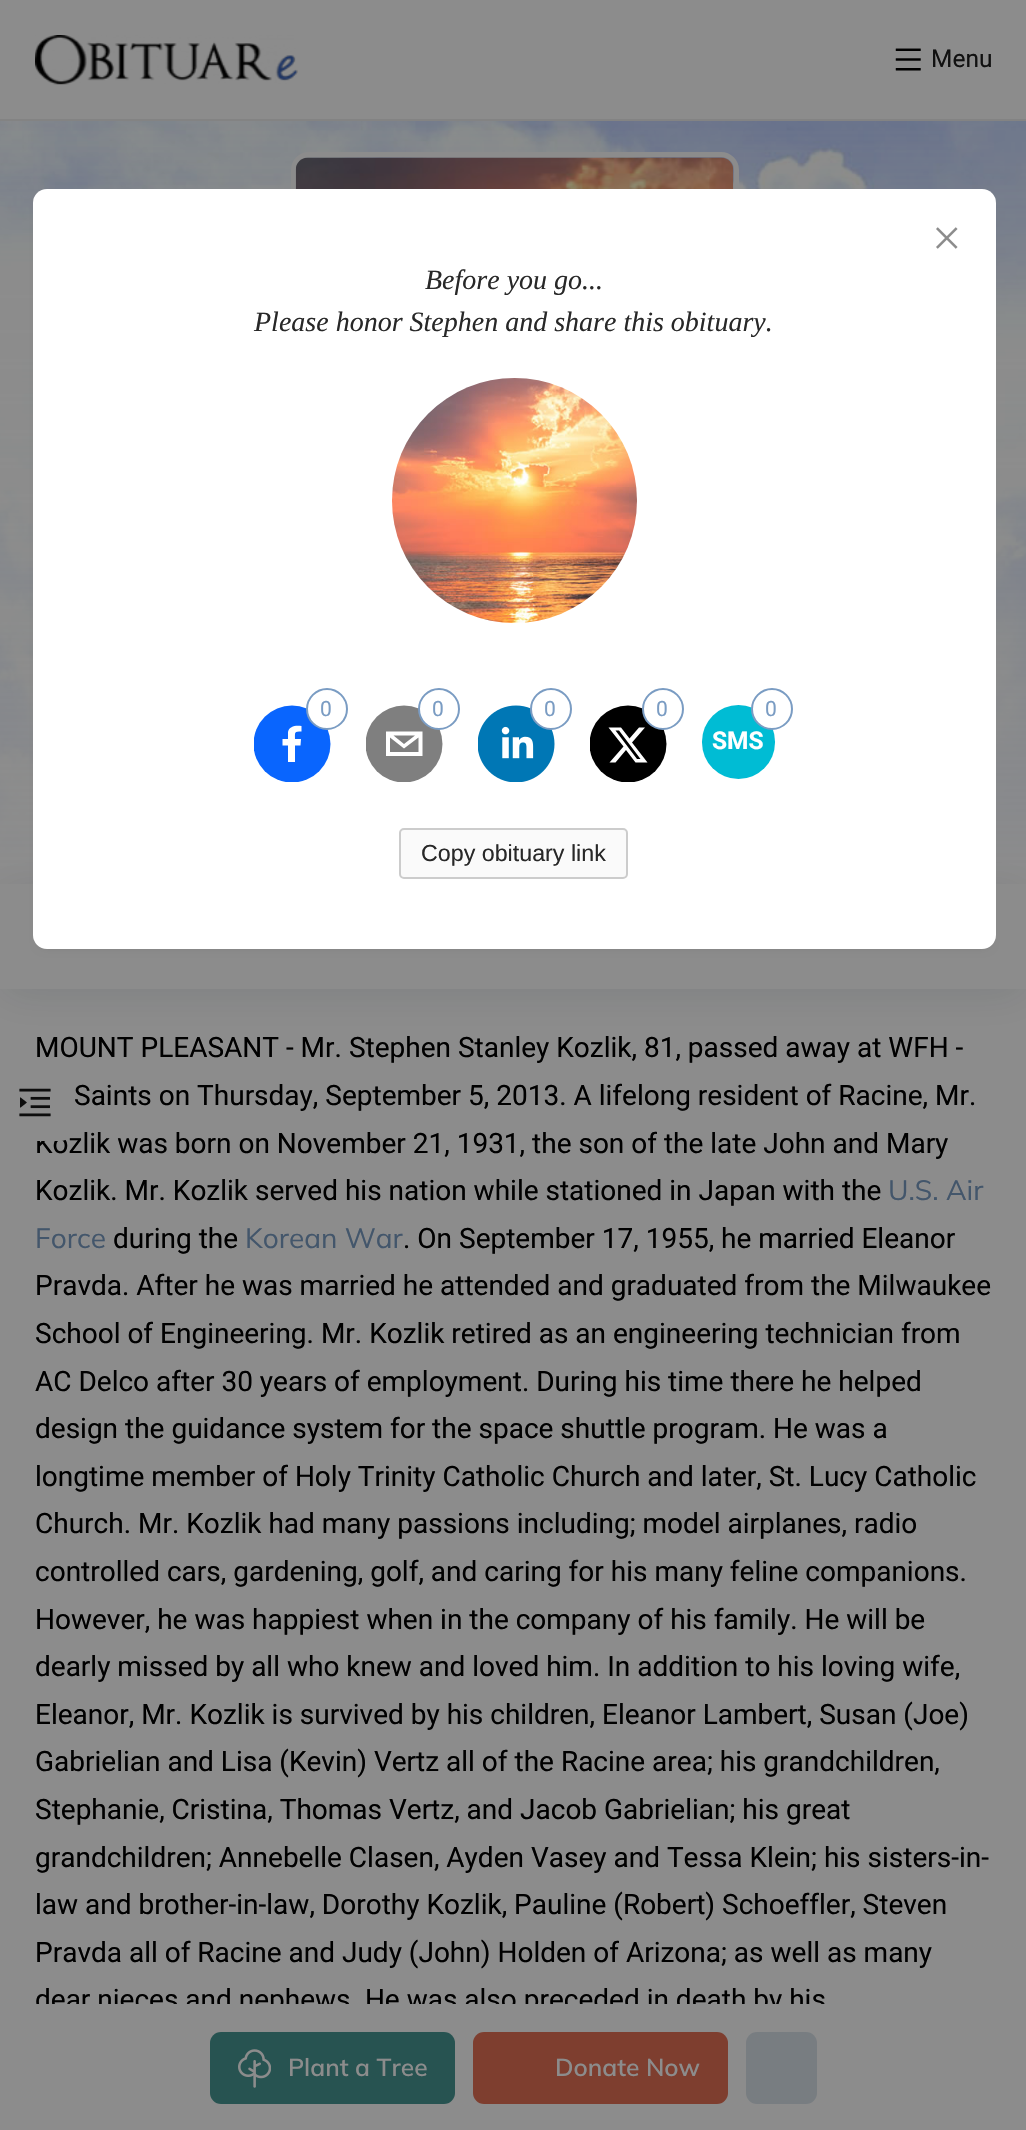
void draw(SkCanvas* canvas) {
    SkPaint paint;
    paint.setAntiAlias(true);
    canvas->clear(0xFF8C8C8C);
    paint.setColor(0xFF838383);
    canvas->drawRect(SkRect::MakeXYWH(0, 119, 1026, 2), paint);
    canvas->drawImageRect(SkImages::DeferredFromEncodedData(SkData::MakeFromFileName("img1.png")), SkRect::MakeXYWH(35, 35, 263, 50), SkSamplingOptions());
    canvas->drawImageRect(SkImages::DeferredFromEncodedData(SkData::MakeFromFileName("img2.png")), SkRect::MakeXYWH(895, 48, 26, 23), SkSamplingOptions());
    SkFont font1(fontMgr->matchFamilyStyle("Roboto", SkFontStyle::Normal()), 24.5f);
    font1.setSubpixel(true);
    paint.setColor(0xFF111111);
    canvas->drawString("Menu", 931, 67, font1, paint);
    canvas->drawImageRect(SkImages::DeferredFromEncodedData(SkData::MakeFromFileName("img3.png")), SkRect::MakeXYWH(0, 121, 1026, 758), SkSamplingOptions());
    {
        const SkColor colors[] = {0xFF010014, 0x00010014, 0x008C8C8C, 0xFF8C8C8C};
        const float stops[] = {0, 0, 0, 1};
        const SkPoint ends[] = {{514, 65}, {514, 884}};
        paint.setShader(SkGradientShader::MakeLinear(ends, colors, stops, 4, SkTileMode::kClamp));
        paint.setAlpha(255);
    }
    canvas->drawRect(SkRect::MakeXYWH(0, 121, 1026, 758), paint);
    paint.setStyle(SkPaint::kStroke_Style);
    paint.setStrokeWidth(5);
    paint.setShader(nullptr);
    paint.setColor(0xFF8C8C8C);
    canvas->drawRoundRect(SkRect::MakeXYWH(293.5f, 154.5f, 443, 443), 15.5f, 15.5f, paint);
    canvas->drawImageRect(SkImages::DeferredFromEncodedData(SkData::MakeFromFileName("img4.png")), SkRect::MakeXYWH(295, 157, 439, 32), SkSamplingOptions());
    paint.setStyle(SkPaint::kFill_Style);
    paint.setColor(0x1A0E1B27);
    paint.setMaskFilter(SkMaskFilter::MakeBlur(kNormal_SkBlurStyle, 22));
    canvas->drawRect(SkRect::MakeXYWH(0, 891, 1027, 105), paint);
    paint.setMaskFilter(nullptr);
    paint.setColor(0xFF8C8C8C);
    canvas->drawRect(SkRect::MakeXYWH(0, 884, 1026, 105), paint);
    SkFont font2(fontMgr->matchFamilyStyle("Roboto", SkFontStyle::Normal()), 28);
    font2.setSubpixel(true);
    paint.setColor(0xFF000000);
    canvas->drawString("MOUNT PLEASANT - Mr. Stephen Stanley Kozlik, 81, passed away at WFH -", 35, 1057, font2, paint);
    canvas->drawString("Saints on Thursday, September 5, 2013. A lifelong resident of Racine, Mr.", 74, 1105, font2, paint);
    canvas->drawString("Kozlik was born on November 21, 1931, the son of the late John and Mary", 35, 1153, font2, paint);
    canvas->drawString("Kozlik. Mr. Kozlik served his nation while stationed in Japan with the", 35, 1200, font2, paint);
    SkFont font3(fontMgr->matchFamilyStyle("Mulish", SkFontStyle::Normal()), 28);
    font3.setSubpixel(true);
    paint.setColor(0xFF43566B);
    canvas->drawString("U.S. Air", 888, 1200, font3, paint);
    canvas->drawString("Force", 35, 1248, font3, paint);
    paint.setColor(0xFF000000);
    canvas->drawString("during the", 113, 1248, font2, paint);
    paint.setColor(0xFF43566B);
    canvas->drawString("Korean War", 245, 1248, font3, paint);
    paint.setColor(0xFF000000);
    canvas->drawString(". On September 17, 1955, he married Eleanor", 403, 1248, font2, paint);
    canvas->drawString("Pravda. After he was married he attended and graduated from the Milwaukee", 35, 1295, font2, paint);
    canvas->drawString("School of Engineering. Mr. Kozlik retired as an engineering technician from", 35, 1343, font2, paint);
    canvas->drawString("AC Delco after 30 years of employment. During his time there he helped", 35, 1391, font2, paint);
    canvas->drawString("design the guidance system for the space shuttle program. He was a", 35, 1438, font2, paint);
    canvas->drawString("longtime member of Holy Trinity Catholic Church and later, St. Lucy Catholic", 35, 1486, font2, paint);
    canvas->drawString("Church. Mr. Kozlik had many passions including; model airplanes, radio", 35, 1533, font2, paint);
    canvas->drawString("controlled cars, gardening, golf, and caring for his many feline companions.", 35, 1581, font2, paint);
    canvas->drawString("However, he was happiest when in the company of his family. He will be", 35, 1629, font2, paint);
    canvas->drawString("dearly missed by all who knew and loved him. In addition to his loving wife,", 35, 1676, font2, paint);
    canvas->drawString("Eleanor, Mr. Kozlik is survived by his children, Eleanor Lambert, Susan (Joe)", 35, 1724, font2, paint);
    canvas->drawString("Gabrielian and Lisa (Kevin) Vertz all of the Racine area; his grandchildren,", 35, 1771, font2, paint);
    canvas->drawString("Stephanie, Cristina, Thomas Vertz, and Jacob Gabrielian; his great", 35, 1819, font2, paint);
    canvas->drawString("grandchildren; Annebelle Clasen, Ayden Vasey and Tessa Klein; his sisters-in-", 35, 1867, font2, paint);
    canvas->drawString("law and brother-in-law, Dorothy Kozlik, Pauline (Robert) Schoeffler, Steven", 35, 1914, font2, paint);
    canvas->drawString("Pravda all of Racine and Judy (John) Holden of Arizona; as well as many", 35, 1962, font2, paint);
    canvas->drawString("dear nieces and nephews. He was also preceded in death by his", 35, 2009, font2, paint);
    paint.setColor(0xFF8C8C8C);
    canvas->drawRect(SkRect::MakeXYWH(36, 2004, 789, 11), paint);
    paint.setColor(0xFF275351);
    canvas->drawRoundRect(SkRect::MakeXYWH(210, 2032, 245, 72), 11, 11, paint);
    canvas->drawImageRect(SkImages::DeferredFromEncodedData(SkData::MakeFromFileName("img5.png")), SkRect::MakeXYWH(238, 2049, 33, 39), SkSamplingOptions());
    SkFont font4(fontMgr->matchFamilyStyle("Mulish", SkFontStyle(600, SkFontStyle::kNormal_Width, SkFontStyle::kUpright_Slant)), 24.5f);
    font4.setSubpixel(true);
    paint.setColor(0xFF8C8C8C);
    canvas->drawString("Plant a Tree", 288, 2076, font4, paint);
    paint.setColor(0xFF7E3E2F);
    canvas->drawRoundRect(SkRect::MakeXYWH(473, 2032, 255, 72), 11, 11, paint);
    paint.setColor(0xFF8C8C8C);
    canvas->drawString("Donate Now", 555, 2076, font4, paint);
    paint.setColor(0xFF787D81);
    canvas->drawRoundRect(SkRect::MakeXYWH(746, 2032, 71, 72), 11, 11, paint);
    paint.setColor(0xFF8C8C8C);
    canvas->drawPath(SkPathBuilder().moveTo(0, 1066).lineTo(61, 1066).cubicTo(66, 1066, 70, 1070, 70, 1075).lineTo(70, 1132).cubicTo(70, 1137, 66, 1141, 61, 1141).lineTo(0, 1141).close().detach(), paint);
    canvas->drawImageRect(SkImages::DeferredFromEncodedData(SkData::MakeFromFileName("img6.png")), SkRect::MakeXYWH(19, 1088, 32, 29), SkSamplingOptions());
    paint.setColor(0x1F000000);
    paint.setMaskFilter(SkMaskFilter::MakeBlur(kNormal_SkBlurStyle, 5));
    canvas->drawRoundRect(SkRect::MakeXYWH(40, 201, 949, 746), 7, 7, paint);
    paint.setMaskFilter(nullptr);
    paint.setColor(0xFFFFFFFF);
    canvas->drawRoundRect(SkRect::MakeXYWH(33, 189, 963, 760), 14, 14, paint);
    canvas->drawImageRect(SkImages::DeferredFromEncodedData(SkData::MakeFromFileName("img7.png")), SkRect::MakeXYWH(936, 227, 22, 22), SkSamplingOptions());
    SkFont font5(fontMgr->matchFamilyStyle("Liberation Serif", SkFontStyle::Italic()), 28);
    font5.setSubpixel(true);
    paint.setColor(0xFF282828);
    canvas->drawString("Before you go...", 425, 289, font5, paint);
    canvas->drawString("Please honor Stephen and share this obituary.", 254, 331, font5, paint);
    canvas->drawImageRect(SkImages::DeferredFromEncodedData(SkData::MakeFromFileName("img8.png")), SkRect::MakeXYWH(392, 378, 245, 245), SkSamplingOptions());
    canvas->save();
    canvas->clipRect(SkRect::MakeXYWH(254, 705, 77, 77));
    paint.setColor(0xFF0965FE);
    canvas->drawCircle(292, 744, 38.5f, paint);
    canvas->restore();
    paint.setColor(0xFFFFFFFF);
    canvas->drawCircle(327, 709, 20, paint);
    paint.setStyle(SkPaint::kStroke_Style);
    paint.setStrokeWidth(2);
    paint.setColor(0xFF7A9CC3);
    canvas->drawCircle(327, 709, 20, paint);
    SkFont font6(fontMgr->matchFamilyStyle("Roboto", SkFontStyle::Normal()), 21);
    font6.setSubpixel(true);
    paint.setStyle(SkPaint::kFill_Style);
    canvas->drawString("0", 320, 716, font6, paint);
    paint.setColor(0xFFFFFFFF);
    canvas->drawPath(SkPathBuilder().moveTo(295, 762).lineTo(295, 745.5f).lineTo(300.5f, 745.5f).lineTo(301, 739).lineTo(295, 739).cubicTo(295, 732, 294, 731.5f, 301.5f, 731.5f).lineTo(301.5f, 726).cubicTo(296, 725, 289, 726, 288, 732).lineTo(288, 739).lineTo(282.5f, 739).lineTo(282.5f, 745.5f).lineTo(288, 745.5f).lineTo(288, 762).close().detach(), paint);
    canvas->save();
    canvas->clipRect(SkRect::MakeXYWH(366, 705, 77, 77));
    paint.setColor(0xFF7F7F7F);
    canvas->drawCircle(404, 744, 38.5f, paint);
    canvas->restore();
    paint.setColor(0xFFFFFFFF);
    canvas->drawCircle(439, 709, 20, paint);
    paint.setStyle(SkPaint::kStroke_Style);
    paint.setColor(0xFF7A9CC3);
    canvas->drawCircle(439, 709, 20, paint);
    paint.setStyle(SkPaint::kFill_Style);
    canvas->drawString("0", 432, 716, font6, paint);
    paint.setColor(0xFFFFFFFF);
    canvas->drawPath(SkPathBuilder().moveTo(386, 731.5f).lineTo(386, 756).lineTo(422.5f, 756).lineTo(422.5f, 731.5f).close().moveTo(415, 735.5f).lineTo(404, 744).lineTo(393.5f, 735.5f).close().moveTo(390, 752).lineTo(390, 737.5f).lineTo(404, 748.5f).lineTo(418.5f, 737.5f).lineTo(418.5f, 752).close().detach(), paint);
    canvas->drawImageRect(SkImages::DeferredFromEncodedData(SkData::MakeFromFileName("img9.png")), SkRect::MakeXYWH(478, 705, 77, 77), SkSamplingOptions());
    canvas->drawCircle(551, 709, 20, paint);
    paint.setStyle(SkPaint::kStroke_Style);
    paint.setColor(0xFF7A9CC3);
    canvas->drawCircle(551, 709, 20, paint);
    paint.setStyle(SkPaint::kFill_Style);
    canvas->drawString("0", 544, 716, font6, paint);
    canvas->save();
    canvas->clipRect(SkRect::MakeXYWH(590, 705, 77, 77));
    paint.setColor(0xFF000000);
    canvas->drawCircle(628, 744, 38.5f, paint);
    canvas->restore();
    paint.setColor(0xFFFFFFFF);
    canvas->drawPath(SkPathBuilder().moveTo(639, 727.5f).lineTo(645, 727.5f).lineTo(632, 742.5f).lineTo(647.5f, 762.5f).lineTo(635.5f, 762.5f).lineTo(626, 750).lineTo(615.5f, 762.5f).lineTo(609.5f, 762.5f).lineTo(623.5f, 746.5f).lineTo(608.5f, 727.5f).lineTo(621, 727.5f).lineTo(629.5f, 738.5f).close().moveTo(637, 759).lineTo(640.5f, 759).lineTo(619, 730.5f).lineTo(615.5f, 730.5f).close().detach(), paint);
    canvas->drawCircle(663, 709, 20, paint);
    paint.setStyle(SkPaint::kStroke_Style);
    paint.setColor(0xFF7A9CC3);
    canvas->drawCircle(663, 709, 20, paint);
    paint.setStyle(SkPaint::kFill_Style);
    canvas->drawString("0", 656, 716, font6, paint);
    paint.setColor(0xFF00BCD4);
    canvas->drawRoundRect(SkRect::MakeXYWH(702, 705, 73, 74), 36.5f, 36.5f, paint);
    paint.setColor(0xFFFFFFFF);
    canvas->drawCircle(772, 709, 20, paint);
    paint.setStyle(SkPaint::kStroke_Style);
    paint.setColor(0xFF7A9CC3);
    canvas->drawCircle(772, 709, 20, paint);
    paint.setStyle(SkPaint::kFill_Style);
    canvas->drawString("0", 765, 716, font6, paint);
    SkFont font7(fontMgr->matchFamilyStyle("Roboto", SkFontStyle::Bold()), 24.5f);
    font7.setSubpixel(true);
    paint.setColor(0xFFFFFFFF);
    canvas->drawString("SMS", 712, 749, font7, paint);
    paint.setColor(0xFFFAFAFA);
    canvas->drawRoundRect(SkRect::MakeXYWH(400, 829, 227, 49), 4, 4, paint);
    paint.setStyle(SkPaint::kStroke_Style);
    paint.setColor(0xFFCCCCCC);
    canvas->drawRoundRect(SkRect::MakeXYWH(400, 829, 227, 49), 4, 4, paint);
    SkFont font8(fontMgr->matchFamilyStyle("Liberation Sans", SkFontStyle::Normal()), 23.25f);
    font8.setSubpixel(true);
    paint.setStyle(SkPaint::kFill_Style);
    paint.setColor(0xFF282828);
    canvas->drawString("Copy obituary link", 421, 861, font8, paint);
}
